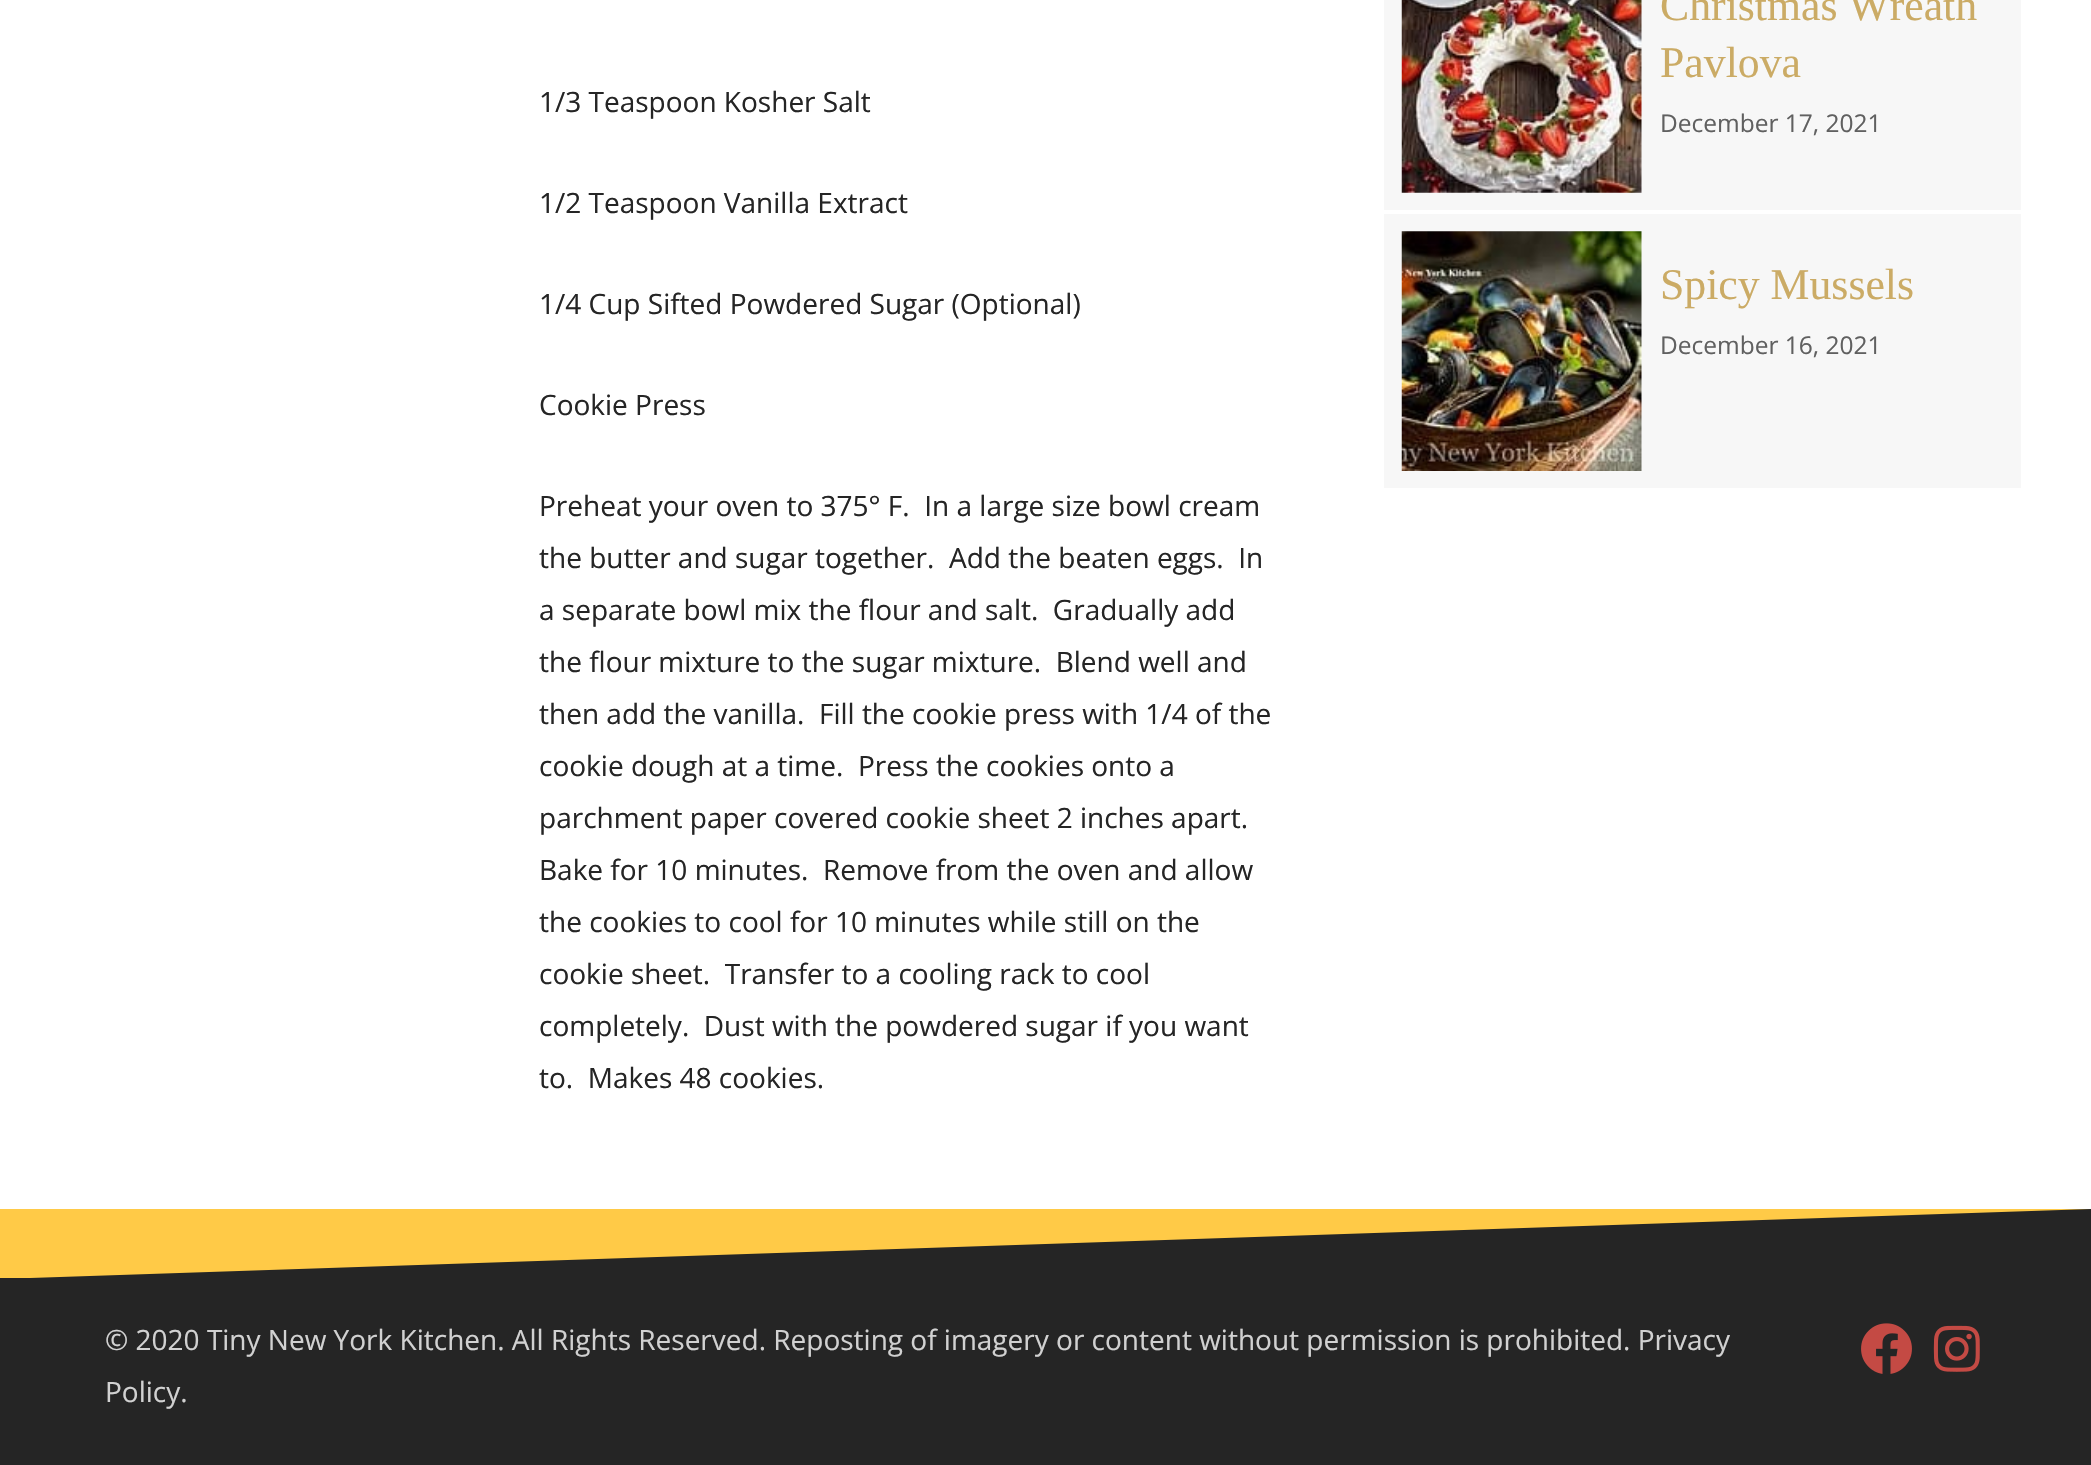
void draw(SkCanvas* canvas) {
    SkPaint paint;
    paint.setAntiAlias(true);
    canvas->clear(0xFFFFFFFF);
    SkFont font1(fontMgr->matchFamilyStyle("Open Sans", SkFontStyle::Normal()), 28);
    font1.setSubpixel(true);
    paint.setColor(0xFF252525);
    canvas->drawString("1/3 Teaspoon Kosher Salt", 539, 112, font1, paint);
    canvas->drawString("1/2 Teaspoon Vanilla Extract", 539, 213, font1, paint);
    canvas->drawString("1/4 Cup Sifted Powdered Sugar (Optional)", 539, 314, font1, paint);
    canvas->drawString("Cookie Press", 539, 415, font1, paint);
    canvas->drawString("Preheat your oven to 375° F.  In a large size bowl cream", 539, 516, font1, paint);
    canvas->drawString("the butter and sugar together.  Add the beaten eggs.  In", 539, 568, font1, paint);
    canvas->drawString("a separate bowl mix the flour and salt.  Gradually add", 539, 620, font1, paint);
    canvas->drawString("the flour mixture to the sugar mixture.  Blend well and", 539, 672, font1, paint);
    canvas->drawString("then add the vanilla.  Fill the cookie press with 1/4 of the", 539, 724, font1, paint);
    canvas->drawString("cookie dough at a time.  Press the cookies onto a", 539, 776, font1, paint);
    canvas->drawString("parchment paper covered cookie sheet 2 inches apart.", 539, 828, font1, paint);
    canvas->drawString("Bake for 10 minutes.  Remove from the oven and allow", 539, 880, font1, paint);
    canvas->drawString("the cookies to cool for 10 minutes while still on the", 539, 932, font1, paint);
    canvas->drawString("cookie sheet.  Transfer to a cooling rack to cool", 539, 984, font1, paint);
    canvas->drawString("completely.  Dust with the powdered sugar if you want", 539, 1036, font1, paint);
    canvas->drawString("to.  Makes 48 cookies.", 539, 1088, font1, paint);
    paint.setColor(0xFFF7F7F7);
    canvas->drawRect(SkRect::MakeXYWH(1384, 0, 637, 210), paint);
    canvas->drawImageRect(SkImages::DeferredFromEncodedData(SkData::MakeFromFileName("img1.png")), SkRect::MakeXYWH(1401, 0, 241, 193), SkSamplingOptions());
    SkFont font2(fontMgr->matchFamilyStyle("Liberation Serif", SkFontStyle::Normal()), 43.75f);
    font2.setSubpixel(true);
    paint.setColor(0xFFCBAB65);
    canvas->drawString("Christmas Wreath", 1660, 20, font2, paint);
    canvas->drawString("Pavlova", 1660, 77, font2, paint);
    SkFont font3(fontMgr->matchFamilyStyle("Open Sans", SkFontStyle::Normal()), 24.5f);
    font3.setSubpixel(true);
    paint.setColor(0xFF606060);
    canvas->drawString("December 17, 2021", 1660, 132, font3, paint);
    paint.setColor(0xFFF7F7F7);
    canvas->drawRect(SkRect::MakeXYWH(1384, 214, 637, 274), paint);
    canvas->drawImageRect(SkImages::DeferredFromEncodedData(SkData::MakeFromFileName("img2.png")), SkRect::MakeXYWH(1401, 231, 241, 240), SkSamplingOptions());
    paint.setColor(0xFFCBAB65);
    canvas->drawString("Spicy Mussels", 1660, 299, font2, paint);
    paint.setColor(0xFF606060);
    canvas->drawString("December 16, 2021", 1660, 354, font3, paint);
    paint.setColor(0xFF252525);
    canvas->drawRect(SkRect::MakeXYWH(0, 1209, 2091, 256), paint);
    canvas->save();
    canvas->clipRect(SkRect::MakeXYWH(0, 1208, 2091, 70));
    paint.setColor(0xFFFFCA47);
    canvas->drawPath(SkPathBuilder().moveTo(0, 1279).lineTo(0, 1209).lineTo(2091, 1209).close().detach(), paint);
    canvas->restore();
    paint.setColor(0xFFD1D1D1);
    canvas->drawString("© 2020 Tiny New York Kitchen. All Rights Reserved. Reposting of imagery or content without permission is prohibited. Privacy", 105, 1350, font1, paint);
    canvas->drawString("Policy.", 105, 1402, font1, paint);
    canvas->drawImageRect(SkImages::DeferredFromEncodedData(SkData::MakeFromFileName("img3.png")), SkRect::MakeXYWH(1861, 1323, 51, 51), SkSamplingOptions());
    canvas->drawImageRect(SkImages::DeferredFromEncodedData(SkData::MakeFromFileName("img4.png")), SkRect::MakeXYWH(1933, 1325, 47, 47), SkSamplingOptions());
}
